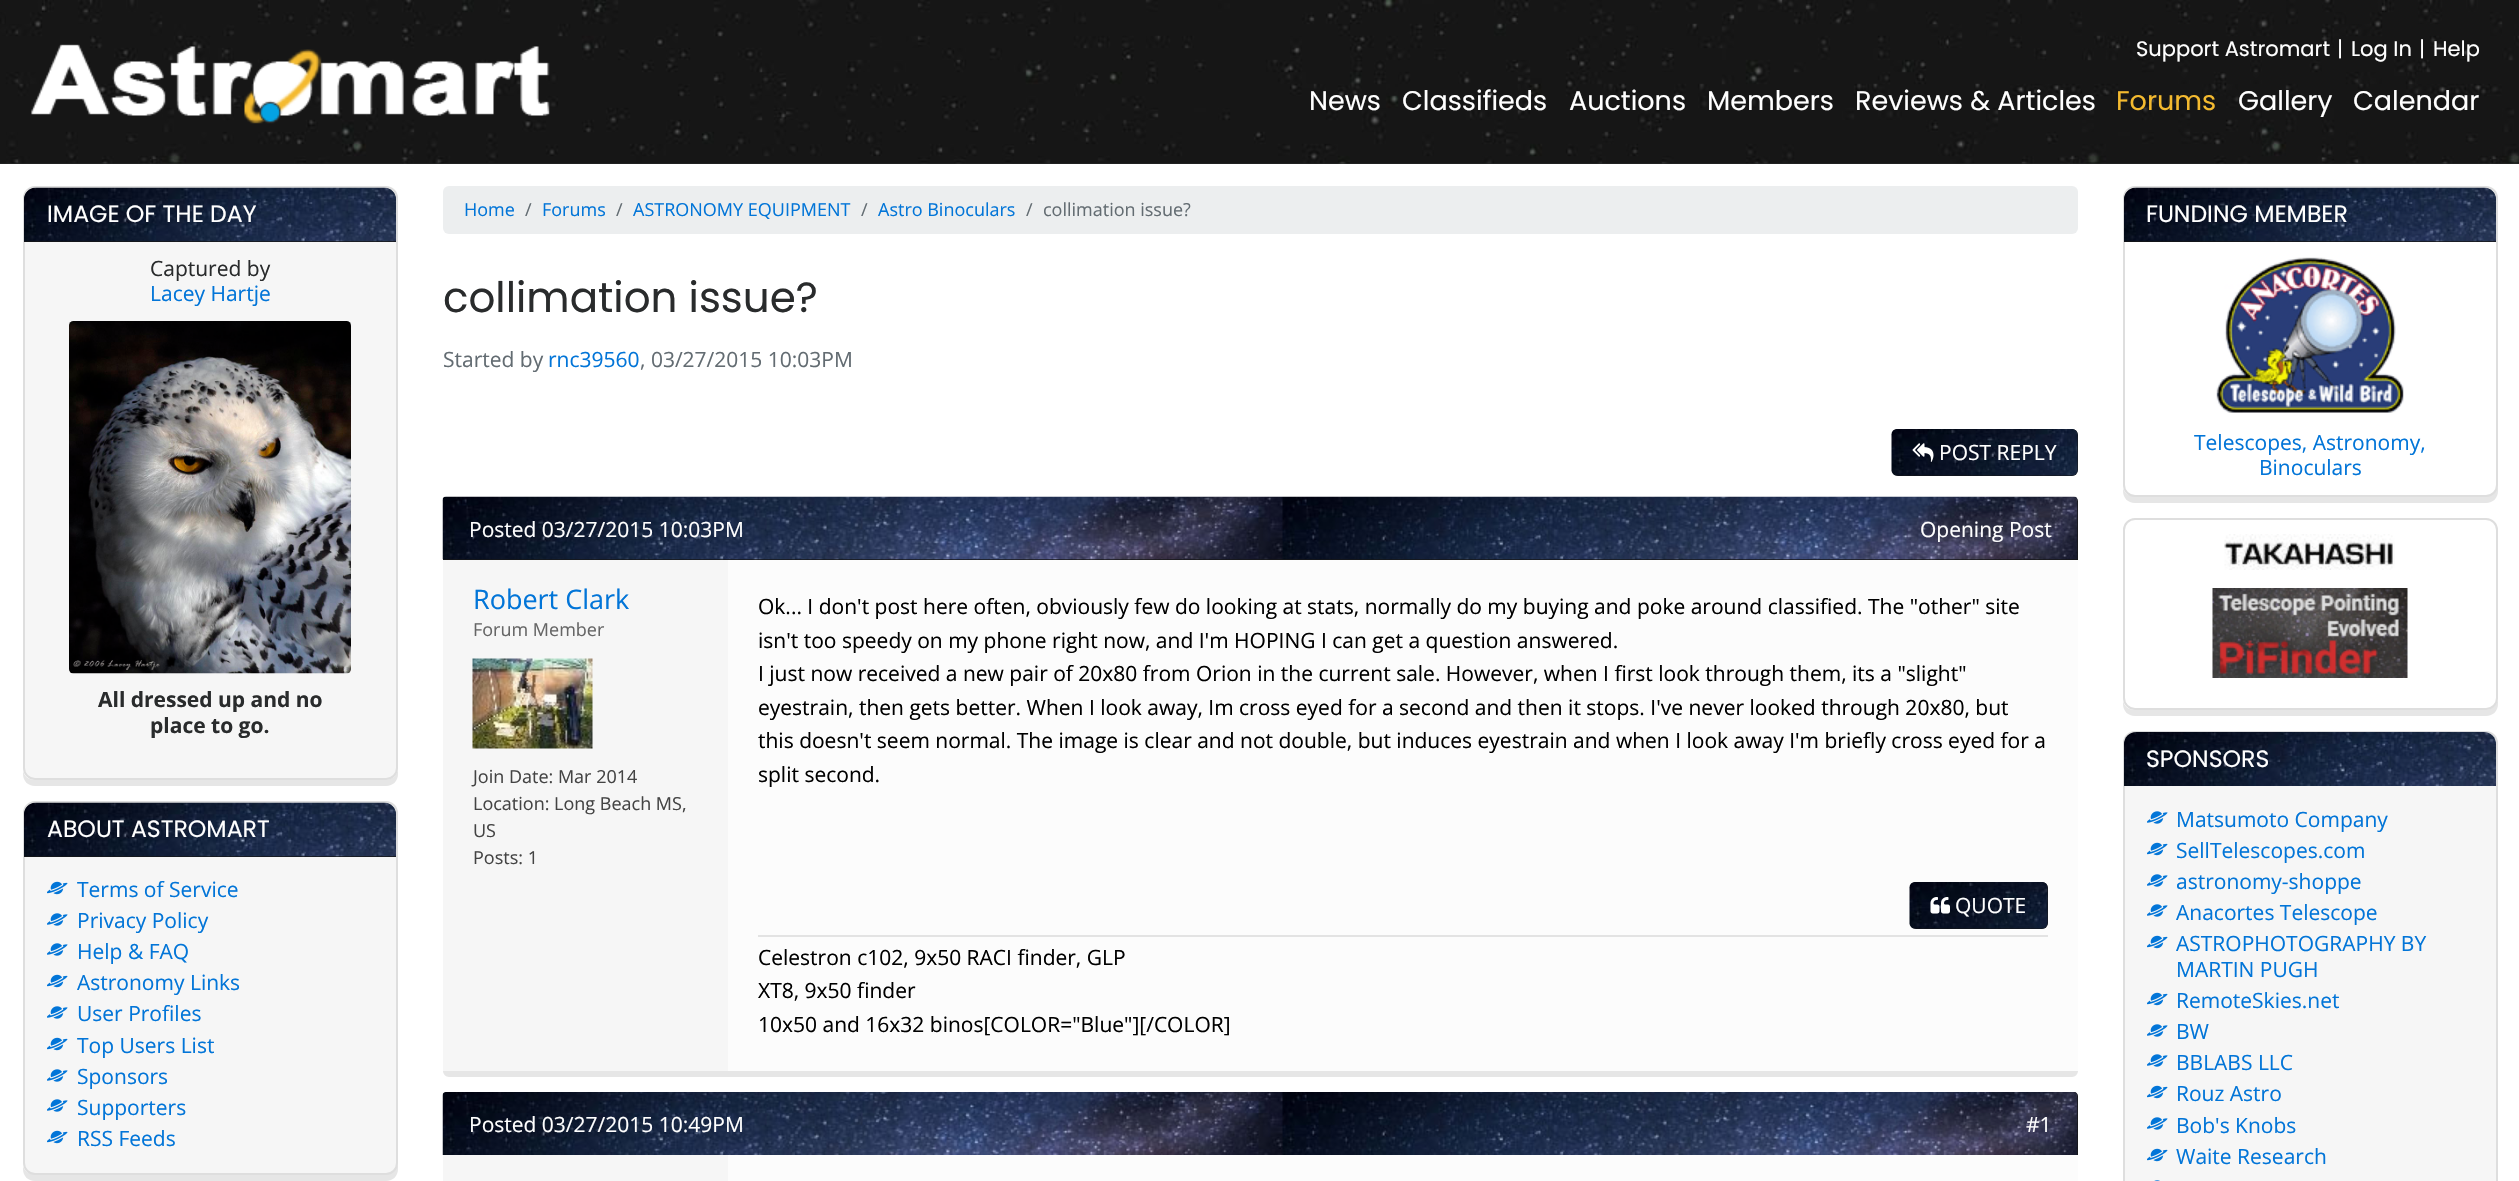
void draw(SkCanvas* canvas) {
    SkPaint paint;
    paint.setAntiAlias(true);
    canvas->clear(0xFFFFFFFF);
    paint.setColor(0xFF292B2C);
    canvas->drawRect(SkRect::MakeXYWH(0, 163, 2519, 1), paint);
    canvas->drawImageRect(SkImages::DeferredFromEncodedData(SkData::MakeFromFileName("img1.png")), SkRect::MakeXYWH(0, 0, 2519, 164), SkSamplingOptions());
    canvas->drawImageRect(SkImages::DeferredFromEncodedData(SkData::MakeFromFileName("img2.png")), SkRect::MakeXYWH(31, 44, 519, 80), SkSamplingOptions());
    SkFont font1(fontMgr->matchFamilyStyle("Poppins", SkFontStyle::Normal()), 21);
    font1.setSubpixel(true);
    paint.setColor(0xFFFFFFFF);
    canvas->drawString("Support Astromart", 2136, 56, font1, paint);
    canvas->drawString("|", 2337, 56, font1, paint);
    canvas->drawString("Log In", 2351, 56, font1, paint);
    canvas->drawString("|", 2419, 56, font1, paint);
    canvas->drawString("Help", 2433, 56, font1, paint);
    SkFont font2(fontMgr->matchFamilyStyle("Poppins", SkFontStyle::Normal()), 27);
    font2.setSubpixel(true);
    canvas->drawString("News", 1309, 110, font2, paint);
    canvas->drawString("Classifieds", 1402, 110, font2, paint);
    canvas->drawString("Auctions", 1569, 110, font2, paint);
    canvas->drawString("Members", 1707, 110, font2, paint);
    canvas->drawString("Reviews & Articles", 1855, 110, font2, paint);
    paint.setColor(0xFFF4BA2F);
    canvas->drawString("Forums", 2116, 110, font2, paint);
    paint.setColor(0xFFFFFFFF);
    canvas->drawString("Gallery", 2238, 110, font2, paint);
    canvas->drawString("Calendar", 2353, 110, font2, paint);
    paint.setColor(0xFFE6E6E6);
    canvas->drawPath(SkPathBuilder().moveTo(23, 771).lineTo(23, 774).cubicTo(23, 781, 28, 786, 35, 786).lineTo(386, 786).cubicTo(393, 786, 398, 781, 398, 774).lineTo(398, 204).lineTo(398, 201).lineTo(398, 768).cubicTo(398, 775, 392, 780, 386, 780).lineTo(34, 780).cubicTo(29, 780, 24, 776, 23, 771).close().detach(), paint);
    paint.setColor(0xFFF6F6F6);
    canvas->drawRoundRect(SkRect::MakeXYWH(24, 187, 373, 592), 11, 11, paint);
    paint.setStyle(SkPaint::kStroke_Style);
    paint.setStrokeWidth(2);
    paint.setColor(0xFFDEDEDE);
    canvas->drawRoundRect(SkRect::MakeXYWH(24, 187, 373, 592), 11, 11, paint);
    paint.setStyle(SkPaint::kFill_Style);
    paint.setColor(0xFF161616);
    canvas->drawPath(SkPathBuilder().moveTo(36, 188).lineTo(384, 188).cubicTo(390.5f, 188, 396, 193.5f, 396, 200).lineTo(396, 242).lineTo(24, 242).lineTo(24, 200).cubicTo(24, 193.5f, 29.5f, 188, 36, 188).close().detach(), paint);
    canvas->drawImageRect(SkImages::DeferredFromEncodedData(SkData::MakeFromFileName("img3.png")), SkRect::MakeXYWH(24, 187, 372, 55), SkSamplingOptions());
    SkFont font3(fontMgr->matchFamilyStyle("Poppins", SkFontStyle::Normal()), 23.6f);
    font3.setSubpixel(true);
    paint.setColor(0xFFFFFFFF);
    canvas->drawString("IMAGE OF THE DAY", 47, 222, font3, paint);
    SkFont font4(fontMgr->matchFamilyStyle("Open Sans", SkFontStyle::Normal()), 21);
    font4.setSubpixel(true);
    paint.setColor(0xFF292B2C);
    canvas->drawString("Captured by", 150, 276, font4, paint);
    paint.setColor(0xFF0275D8);
    canvas->drawString("Lacey Hartje", 150, 301, font4, paint);
    canvas->drawImageRect(SkImages::DeferredFromEncodedData(SkData::MakeFromFileName("img4.png")), SkRect::MakeXYWH(69, 321, 282, 353), SkSamplingOptions());
    SkFont font5(fontMgr->matchFamilyStyle("Open Sans", SkFontStyle::Bold()), 21);
    font5.setSubpixel(true);
    paint.setColor(0xFF292B2C);
    canvas->drawString("All dressed up and no", 98, 707, font5, paint);
    canvas->drawString("place to go.", 150, 733, font5, paint);
    paint.setColor(0xFFE6E6E6);
    canvas->drawPath(SkPathBuilder().moveTo(23, 1166).lineTo(23, 1169).cubicTo(23, 1176, 28, 1181, 35, 1181).lineTo(386, 1181).cubicTo(393, 1181, 398, 1176, 398, 1169).lineTo(398, 819).lineTo(398, 816).lineTo(398, 1162).cubicTo(398, 1169, 392, 1174, 386, 1174).lineTo(34, 1174).cubicTo(29, 1174, 24, 1171, 23, 1166).close().detach(), paint);
    paint.setColor(0xFFF6F6F6);
    canvas->drawRoundRect(SkRect::MakeXYWH(24, 802, 373, 372), 11, 11, paint);
    paint.setStyle(SkPaint::kStroke_Style);
    paint.setColor(0xFFDEDEDE);
    canvas->drawRoundRect(SkRect::MakeXYWH(24, 802, 373, 372), 11, 11, paint);
    paint.setStyle(SkPaint::kFill_Style);
    paint.setColor(0xFF161616);
    canvas->drawPath(SkPathBuilder().moveTo(36, 803).lineTo(384, 803).cubicTo(390.5f, 803, 396, 808.5f, 396, 815).lineTo(396, 857).lineTo(24, 857).lineTo(24, 815).cubicTo(24, 808.5f, 29.5f, 803, 36, 803).close().detach(), paint);
    canvas->drawImageRect(SkImages::DeferredFromEncodedData(SkData::MakeFromFileName("img3.png")), SkRect::MakeXYWH(24, 802, 372, 55), SkSamplingOptions());
    paint.setColor(0xFFFFFFFF);
    canvas->drawString("ABOUT ASTROMART", 47, 837, font3, paint);
    canvas->drawImageRect(SkImages::DeferredFromEncodedData(SkData::MakeFromFileName("img5.png")), SkRect::MakeXYWH(47, 881, 21, 14), SkSamplingOptions());
    paint.setColor(0xFF0275D8);
    canvas->drawString("Terms of Service", 77, 897, font4, paint);
    canvas->drawImageRect(SkImages::DeferredFromEncodedData(SkData::MakeFromFileName("img6.png")), SkRect::MakeXYWH(47, 913, 21, 13), SkSamplingOptions());
    canvas->drawString("Privacy Policy", 77, 928, font4, paint);
    canvas->drawImageRect(SkImages::DeferredFromEncodedData(SkData::MakeFromFileName("img6.png")), SkRect::MakeXYWH(47, 943, 21, 13), SkSamplingOptions());
    canvas->drawString("Help & FAQ", 77, 959, font4, paint);
    canvas->drawImageRect(SkImages::DeferredFromEncodedData(SkData::MakeFromFileName("img5.png")), SkRect::MakeXYWH(47, 974, 21, 14), SkSamplingOptions());
    canvas->drawString("Astronomy Links", 77, 990, font4, paint);
    canvas->drawImageRect(SkImages::DeferredFromEncodedData(SkData::MakeFromFileName("img6.png")), SkRect::MakeXYWH(47, 1006, 21, 13), SkSamplingOptions());
    canvas->drawString("User Profiles", 77, 1021, font4, paint);
    canvas->drawImageRect(SkImages::DeferredFromEncodedData(SkData::MakeFromFileName("img5.png")), SkRect::MakeXYWH(47, 1037, 21, 14), SkSamplingOptions());
    canvas->drawString("Top Users List", 77, 1053, font4, paint);
    canvas->drawImageRect(SkImages::DeferredFromEncodedData(SkData::MakeFromFileName("img6.png")), SkRect::MakeXYWH(47, 1069, 21, 13), SkSamplingOptions());
    canvas->drawString("Sponsors", 77, 1084, font4, paint);
    canvas->drawImageRect(SkImages::DeferredFromEncodedData(SkData::MakeFromFileName("img6.png")), SkRect::MakeXYWH(47, 1099, 21, 13), SkSamplingOptions());
    canvas->drawString("Supporters", 77, 1115, font4, paint);
    canvas->drawImageRect(SkImages::DeferredFromEncodedData(SkData::MakeFromFileName("img5.png")), SkRect::MakeXYWH(47, 1130, 21, 14), SkSamplingOptions());
    canvas->drawString("RSS Feeds", 77, 1146, font4, paint);
    paint.setColor(0xFFECEEEF);
    canvas->drawRoundRect(SkRect::MakeXYWH(443, 186, 1635, 48), 6, 6, paint);
    SkFont font6(fontMgr->matchFamilyStyle("Open Sans", SkFontStyle::Normal()), 18);
    font6.setSubpixel(true);
    paint.setColor(0xFF0275D8);
    canvas->drawString("Home", 464, 216, font6, paint);
    paint.setColor(0xFF636C72);
    canvas->drawString("/", 525, 216, font6, paint);
    paint.setColor(0xFF0275D8);
    canvas->drawString("Forums", 542, 216, font6, paint);
    paint.setColor(0xFF636C72);
    canvas->drawString("/", 616, 216, font6, paint);
    paint.setColor(0xFF0275D8);
    canvas->drawString("ASTRONOMY EQUIPMENT", 633, 216, font6, paint);
    paint.setColor(0xFF636C72);
    canvas->drawString("/", 861, 216, font6, paint);
    paint.setColor(0xFF0275D8);
    canvas->drawString("Astro Binoculars", 878, 216, font6, paint);
    paint.setColor(0xFF636C72);
    canvas->drawString("/", 1026, 216, font6, paint);
    canvas->drawString("collimation issue?", 1043, 216, font6, paint);
    SkFont font7(fontMgr->matchFamilyStyle("Poppins", SkFontStyle::Normal()), 42);
    font7.setSubpixel(true);
    paint.setColor(0xFF292B2C);
    canvas->drawString("collimation issue?", 443, 312, font7, paint);
    paint.setColor(0xFF636C72);
    canvas->drawString("Started by", 443, 367, font4, paint);
    paint.setColor(0xFF0275D8);
    canvas->drawString("rnc39560", 548, 367, font4, paint);
    paint.setColor(0xFF636C72);
    canvas->drawString(", 03/27/2015 10:03PM", 640, 367, font4, paint);
    paint.setColor(0xFF161616);
    canvas->drawRoundRect(SkRect::MakeXYWH(1892, 429, 186, 47), 6, 6, paint);
    canvas->drawImageRect(SkImages::DeferredFromEncodedData(SkData::MakeFromFileName("img7.png")), SkRect::MakeXYWH(1891, 429, 187, 47), SkSamplingOptions());
    canvas->drawImageRect(SkImages::DeferredFromEncodedData(SkData::MakeFromFileName("img8.png")), SkRect::MakeXYWH(1912, 443, 22, 19), SkSamplingOptions());
    paint.setColor(0xFFFFFFFF);
    canvas->drawString("POST REPLY", 1939, 460, font4, paint);
    paint.setColor(0xFFE6E6E6);
    canvas->drawPath(SkPathBuilder().moveTo(443, 1068).lineTo(443, 1071).cubicTo(443, 1074, 446, 1077, 449, 1077).lineTo(2072, 1077).cubicTo(2075, 1077, 2078, 1074, 2078, 1071).lineTo(2078, 509).lineTo(2078, 507).lineTo(2078, 1066).cubicTo(2078, 1069, 2075, 1071, 2072, 1071).lineTo(448, 1071).cubicTo(446, 1071, 444, 1070, 443, 1068).close().detach(), paint);
    paint.setColor(0xFF161616);
    canvas->drawPath(SkPathBuilder().moveTo(447, 497).lineTo(2074, 497).cubicTo(2076, 497, 2078, 499, 2078, 501).lineTo(2078, 560).lineTo(443, 560).lineTo(443, 501).cubicTo(443, 499, 445, 497, 447, 497).close().detach(), paint);
    canvas->drawImageRect(SkImages::DeferredFromEncodedData(SkData::MakeFromFileName("img9.png")), SkRect::MakeXYWH(442, 496, 1636, 64), SkSamplingOptions());
    paint.setColor(0xFFFFFFFF);
    canvas->drawString("Posted 03/27/2015 10:03PM", 469, 537, font4, paint);
    canvas->drawString("Opening Post", 1920, 537, font4, paint);
    paint.setColor(0xFFFCFCFC);
    canvas->drawRect(SkRect::MakeXYWH(728, 560, 1350, 511), paint);
    paint.setColor(0xFFF6F6F6);
    canvas->drawRect(SkRect::MakeXYWH(443, 560, 285, 511), paint);
    SkFont font8(fontMgr->matchFamilyStyle("Open Sans", SkFontStyle::Normal()), 27);
    font8.setSubpixel(true);
    paint.setColor(0xFF0275D8);
    canvas->drawString("Robert Clark", 473, 609, font8, paint);
    paint.setColor(0xFF666666);
    canvas->drawString("Forum Member", 473, 636, font6, paint);
    canvas->drawImageRect(SkImages::DeferredFromEncodedData(SkData::MakeFromFileName("img10.png")), SkRect::MakeXYWH(472, 658, 121, 91), SkSamplingOptions());
    paint.setColor(0xFF444444);
    canvas->drawString("Join Date: Mar 2014", 473, 783, font6, paint);
    canvas->drawString("Location: Long Beach MS,", 473, 810, font6, paint);
    canvas->drawString("US", 473, 837, font6, paint);
    canvas->drawString("Posts: 1", 473, 864, font6, paint);
    paint.setColor(0xFF000000);
    canvas->drawString("Ok... I don't post here often, obviously few do looking at stats, normally do my buying and poke around classified. The \"other\" site", 758, 614, font4, paint);
    canvas->drawString("isn't too speedy on my phone right now, and I'm HOPING I can get a question answered.", 758, 648, font4, paint);
    canvas->drawString("I just now received a new pair of 20x80 from Orion in the current sale. However, when I first look through them, its a \"slight\"", 758, 681, font4, paint);
    canvas->drawString("eyestrain, then gets better. When I look away, Im cross eyed for a second and then it stops. I've never looked through 20x80, but", 758, 715, font4, paint);
    canvas->drawString("this doesn't seem normal. The image is clear and not double, but induces eyestrain and when I look away I'm briefly cross eyed for a", 758, 748, font4, paint);
    canvas->drawString("split second.", 758, 782, font4, paint);
    paint.setColor(0xFF161616);
    canvas->drawRoundRect(SkRect::MakeXYWH(1910, 882, 138, 47), 6, 6, paint);
    canvas->drawImageRect(SkImages::DeferredFromEncodedData(SkData::MakeFromFileName("img11.png")), SkRect::MakeXYWH(1909, 882, 139, 47), SkSamplingOptions());
    canvas->drawImageRect(SkImages::DeferredFromEncodedData(SkData::MakeFromFileName("img12.png")), SkRect::MakeXYWH(1930, 897, 20, 17), SkSamplingOptions());
    paint.setColor(0xFFFFFFFF);
    canvas->drawString("QUOTE", 1955, 913, font4, paint);
    paint.setColor(0xFFE3E3E3);
    canvas->drawRect(SkRect::MakeXYWH(758, 935, 1290, 2), paint);
    paint.setColor(0xFF000000);
    canvas->drawString("Celestron c102, 9x50 RACI finder, GLP", 758, 965, font4, paint);
    canvas->drawString("XT8, 9x50 finder", 758, 998, font4, paint);
    canvas->drawString("10x50 and 16x32 binos[COLOR=\"Blue\"][/COLOR]", 758, 1032, font4, paint);
    paint.setColor(0xFF161616);
    canvas->drawPath(SkPathBuilder().moveTo(447, 1092).lineTo(2074, 1092).cubicTo(2076, 1092, 2078, 1094, 2078, 1096).lineTo(2078, 1155).lineTo(443, 1155).lineTo(443, 1096).cubicTo(443, 1094, 445, 1092, 447, 1092).close().detach(), paint);
    canvas->drawImageRect(SkImages::DeferredFromEncodedData(SkData::MakeFromFileName("img13.png")), SkRect::MakeXYWH(442, 1092, 1636, 63), SkSamplingOptions());
    paint.setColor(0xFFFFFFFF);
    canvas->drawString("Posted 03/27/2015 10:49PM", 469, 1132, font4, paint);
    canvas->drawString("#1", 2026, 1132, font4, paint);
    paint.setColor(0xFFFCFCFC);
    canvas->drawRect(SkRect::MakeXYWH(728, 1155, 1350, 26), paint);
    paint.setColor(0xFFF6F6F6);
    canvas->drawRect(SkRect::MakeXYWH(443, 1155, 285, 26), paint);
    paint.setColor(0xFFE6E6E6);
    canvas->drawPath(SkPathBuilder().moveTo(2123, 488).lineTo(2123, 491).cubicTo(2123, 498, 2128, 503, 2135, 503).lineTo(2486, 503).cubicTo(2493, 503, 2498, 498, 2498, 491).lineTo(2498, 204).lineTo(2498, 201).lineTo(2498, 484).cubicTo(2498, 491, 2492, 496, 2486, 496).lineTo(2134, 496).cubicTo(2129, 496, 2124, 493, 2123, 488).close().detach(), paint);
    paint.setColor(0xFFFFFFFF);
    canvas->drawRoundRect(SkRect::MakeXYWH(2124, 187, 373, 309), 11, 11, paint);
    paint.setStyle(SkPaint::kStroke_Style);
    paint.setColor(0xFFDEDEDE);
    canvas->drawRoundRect(SkRect::MakeXYWH(2124, 187, 373, 309), 11, 11, paint);
    paint.setStyle(SkPaint::kFill_Style);
    paint.setColor(0xFF161616);
    canvas->drawPath(SkPathBuilder().moveTo(2136, 188).lineTo(2484, 188).cubicTo(2490.5f, 188, 2496, 193.5f, 2496, 200).lineTo(2496, 242).lineTo(2124, 242).lineTo(2124, 200).cubicTo(2124, 193.5f, 2129.5f, 188, 2136, 188).close().detach(), paint);
    canvas->drawImageRect(SkImages::DeferredFromEncodedData(SkData::MakeFromFileName("img14.png")), SkRect::MakeXYWH(2124, 187, 372, 55), SkSamplingOptions());
    paint.setColor(0xFFFFFFFF);
    canvas->drawString("FUNDING MEMBER", 2146, 222, font3, paint);
    canvas->drawImageRect(SkImages::DeferredFromEncodedData(SkData::MakeFromFileName("img15.png")), SkRect::MakeXYWH(2216, 257, 188, 156), SkSamplingOptions());
    paint.setColor(0xFF0275D8);
    canvas->drawString("Telescopes, Astronomy,", 2194, 450, font4, paint);
    canvas->drawString("Binoculars", 2259, 475, font4, paint);
    paint.setColor(0xFFE6E6E6);
    canvas->drawPath(SkPathBuilder().moveTo(2123, 701).lineTo(2123, 704).cubicTo(2123, 711, 2128, 716, 2135, 716).lineTo(2486, 716).cubicTo(2493, 716, 2498, 711, 2498, 704).lineTo(2498, 536).lineTo(2498, 533).lineTo(2498, 698).cubicTo(2498, 704, 2492, 710, 2486, 710).lineTo(2134, 710).cubicTo(2129, 710, 2124, 706, 2123, 701).close().detach(), paint);
    paint.setColor(0xFFFFFFFF);
    canvas->drawRoundRect(SkRect::MakeXYWH(2124, 519, 373, 190), 11, 11, paint);
    paint.setStyle(SkPaint::kStroke_Style);
    paint.setColor(0xFFDEDEDE);
    canvas->drawRoundRect(SkRect::MakeXYWH(2124, 519, 373, 190), 11, 11, paint);
    canvas->drawImageRect(SkImages::DeferredFromEncodedData(SkData::MakeFromFileName("img16.png")), SkRect::MakeXYWH(2224, 534, 171, 36), SkSamplingOptions());
    canvas->drawImageRect(SkImages::DeferredFromEncodedData(SkData::MakeFromFileName("img17.png")), SkRect::MakeXYWH(2212, 588, 196, 90), SkSamplingOptions());
    paint.setStyle(SkPaint::kFill_Style);
    paint.setColor(0xFFF6F6F6);
    canvas->drawRoundRect(SkRect::MakeXYWH(2124, 732, 373, 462), 11, 11, paint);
    paint.setStyle(SkPaint::kStroke_Style);
    paint.setColor(0xFFDEDEDE);
    canvas->drawRoundRect(SkRect::MakeXYWH(2124, 732, 373, 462), 11, 11, paint);
    canvas->drawImageRect(SkImages::DeferredFromEncodedData(SkData::MakeFromFileName("img18.png")), SkRect::MakeXYWH(2124, 732, 372, 54), SkSamplingOptions());
    paint.setStyle(SkPaint::kFill_Style);
    paint.setColor(0xFFFFFFFF);
    canvas->drawString("SPONSORS", 2146, 767, font3, paint);
    canvas->drawImageRect(SkImages::DeferredFromEncodedData(SkData::MakeFromFileName("img6.png")), SkRect::MakeXYWH(2147, 811, 21, 13), SkSamplingOptions());
    paint.setColor(0xFF0275D8);
    canvas->drawString("Matsumoto Company", 2176, 827, font4, paint);
    canvas->drawImageRect(SkImages::DeferredFromEncodedData(SkData::MakeFromFileName("img5.png")), SkRect::MakeXYWH(2147, 842, 21, 14), SkSamplingOptions());
    canvas->drawString("SellTelescopes.com", 2176, 858, font4, paint);
    canvas->drawImageRect(SkImages::DeferredFromEncodedData(SkData::MakeFromFileName("img6.png")), SkRect::MakeXYWH(2147, 874, 21, 13), SkSamplingOptions());
    canvas->drawString("astronomy-shoppe", 2176, 889, font4, paint);
    canvas->drawImageRect(SkImages::DeferredFromEncodedData(SkData::MakeFromFileName("img6.png")), SkRect::MakeXYWH(2147, 904, 21, 13), SkSamplingOptions());
    canvas->drawString("Anacortes Telescope", 2176, 920, font4, paint);
    canvas->drawImageRect(SkImages::DeferredFromEncodedData(SkData::MakeFromFileName("img5.png")), SkRect::MakeXYWH(2147, 935, 21, 14), SkSamplingOptions());
    canvas->drawString("ASTROPHOTOGRAPHY BY", 2176, 951, font4, paint);
    canvas->drawString("MARTIN PUGH", 2176, 977, font4, paint);
    canvas->drawImageRect(SkImages::DeferredFromEncodedData(SkData::MakeFromFileName("img5.png")), SkRect::MakeXYWH(2147, 992, 21, 14), SkSamplingOptions());
    canvas->drawString("RemoteSkies.net", 2176, 1008, font4, paint);
    canvas->drawImageRect(SkImages::DeferredFromEncodedData(SkData::MakeFromFileName("img6.png")), SkRect::MakeXYWH(2147, 1024, 21, 13), SkSamplingOptions());
    canvas->drawString("BW", 2176, 1039, font4, paint);
    canvas->drawImageRect(SkImages::DeferredFromEncodedData(SkData::MakeFromFileName("img6.png")), SkRect::MakeXYWH(2147, 1054, 21, 13), SkSamplingOptions());
    canvas->drawString("BBLABS LLC", 2176, 1070, font4, paint);
    canvas->drawImageRect(SkImages::DeferredFromEncodedData(SkData::MakeFromFileName("img5.png")), SkRect::MakeXYWH(2147, 1085, 21, 14), SkSamplingOptions());
    canvas->drawString("Rouz Astro", 2176, 1101, font4, paint);
    canvas->drawImageRect(SkImages::DeferredFromEncodedData(SkData::MakeFromFileName("img6.png")), SkRect::MakeXYWH(2147, 1117, 21, 13), SkSamplingOptions());
    canvas->drawString("Bob's Knobs", 2176, 1133, font4, paint);
    canvas->drawImageRect(SkImages::DeferredFromEncodedData(SkData::MakeFromFileName("img5.png")), SkRect::MakeXYWH(2147, 1148, 21, 14), SkSamplingOptions());
    canvas->drawString("Waite Research", 2176, 1164, font4, paint);
    canvas->drawImageRect(SkImages::DeferredFromEncodedData(SkData::MakeFromFileName("img19.png")), SkRect::MakeXYWH(2154, 1180, 6, 1), SkSamplingOptions());
}
